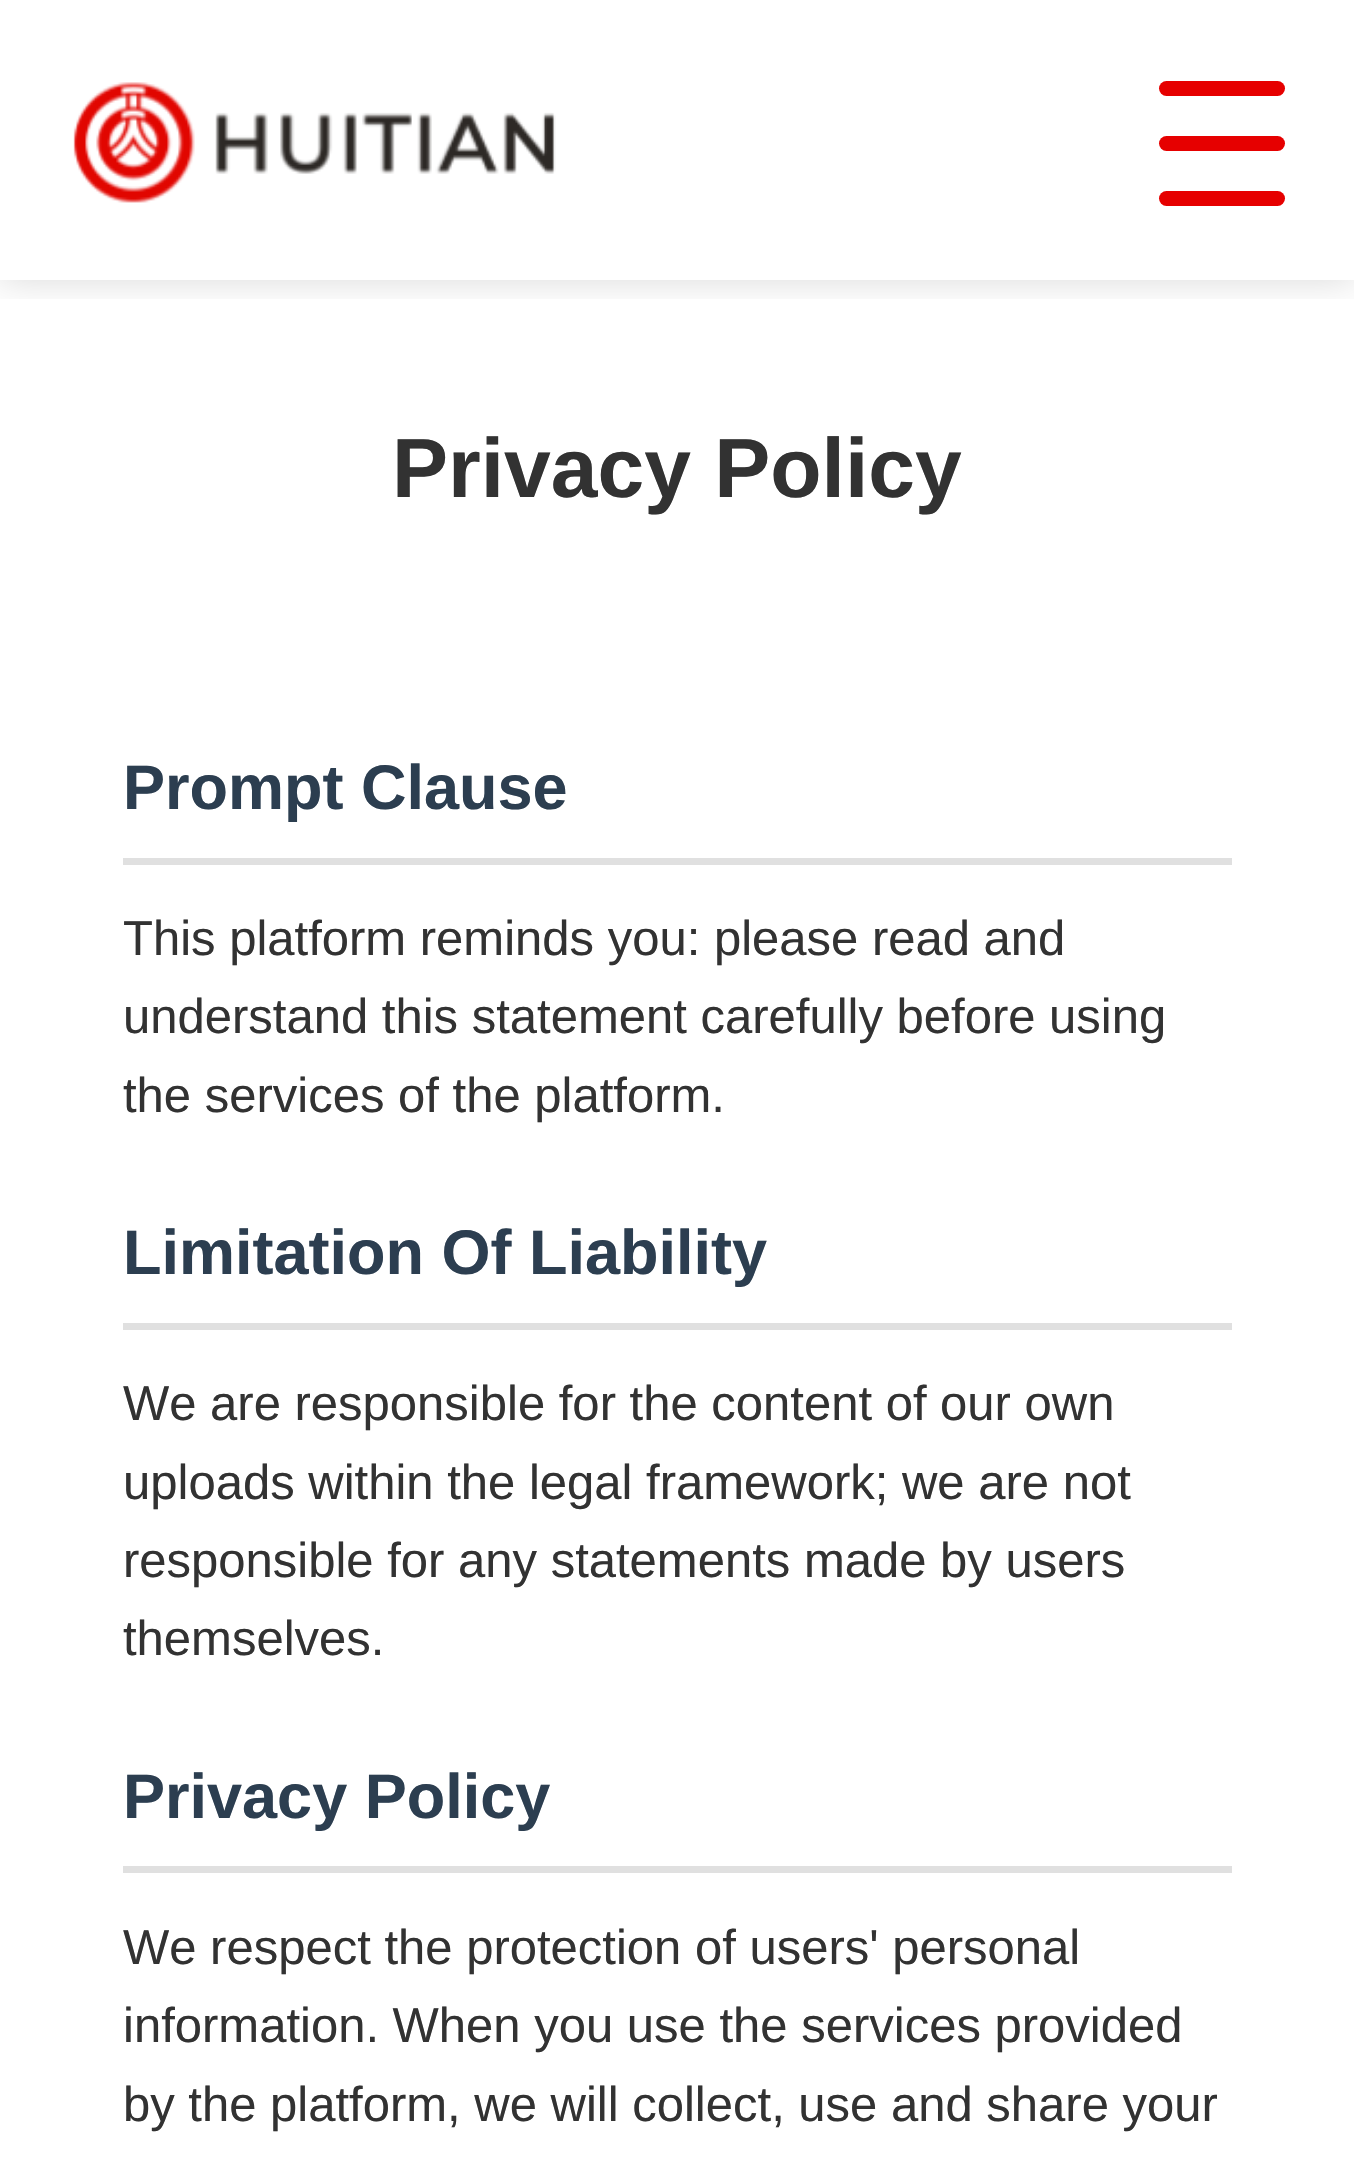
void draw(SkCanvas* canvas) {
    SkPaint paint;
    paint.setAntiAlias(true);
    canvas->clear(0xFFFFFFFF);
    canvas->save();
    canvas->clipRect(SkRect::MakeXYWH(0, 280, 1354, 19));
    paint.setColor(0x26000000);
    paint.setMaskFilter(SkMaskFilter::MakeBlur(kNormal_SkBlurStyle, 17.5f));
    canvas->drawRect(SkRect::MakeXYWH(0, 0, 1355, 280), paint);
    paint.setMaskFilter(nullptr);
    canvas->restore();
    canvas->drawImageRect(SkImages::DeferredFromEncodedData(SkData::MakeFromFileName("img1.png")), SkRect::MakeXYWH(73, 82, 483, 121), SkSamplingOptions());
    paint.setColor(0xFFE60000);
    canvas->drawRoundRect(SkRect::MakeXYWH(1159, 81, 126, 15), 7.5f, 7.5f, paint);
    canvas->drawRoundRect(SkRect::MakeXYWH(1159, 136, 126, 15), 7.5f, 7.5f, paint);
    canvas->drawRoundRect(SkRect::MakeXYWH(1159, 191, 126, 15), 7.5f, 7.5f, paint);
    SkFont font1(fontMgr->matchFamilyStyle("Liberation Sans", SkFontStyle::Bold()), 84);
    font1.setSubpixel(true);
    paint.setColor(0xFF323232);
    canvas->drawString("Privacy Policy", 392, 497, font1, paint);
    paint.setColor(0xFFE0E0E0);
    canvas->drawRect(SkRect::MakeXYWH(123, 858, 1109, 7), paint);
    SkFont font2(fontMgr->matchFamilyStyle("Liberation Sans", SkFontStyle::Bold()), 63);
    font2.setSubpixel(true);
    paint.setColor(0xFF2C3E50);
    canvas->drawString("Prompt Clause", 123, 809, font2, paint);
    SkFont font3(fontMgr->matchFamilyStyle("Liberation Sans", SkFontStyle::Normal()), 49);
    font3.setSubpixel(true);
    paint.setColor(0xFF323232);
    canvas->drawString("This platform reminds you: please read and", 123, 955, font3, paint);
    canvas->drawString("understand this statement carefully before using", 123, 1033, font3, paint);
    canvas->drawString("the services of the platform.", 123, 1112, font3, paint);
    paint.setColor(0xFFE0E0E0);
    canvas->drawRect(SkRect::MakeXYWH(123, 1323, 1109, 7), paint);
    paint.setColor(0xFF2C3E50);
    canvas->drawString("Limitation Of Liability", 123, 1274, font2, paint);
    paint.setColor(0xFF323232);
    canvas->drawString("We are responsible for the content of our own", 123, 1420, font3, paint);
    canvas->drawString("uploads within the legal framework; we are not", 123, 1499, font3, paint);
    canvas->drawString("responsible for any statements made by users", 123, 1577, font3, paint);
    canvas->drawString("themselves.", 123, 1655, font3, paint);
    paint.setColor(0xFFE0E0E0);
    canvas->drawRect(SkRect::MakeXYWH(123, 1866, 1109, 7), paint);
    paint.setColor(0xFF2C3E50);
    canvas->drawString("Privacy Policy", 123, 1818, font2, paint);
    paint.setColor(0xFF323232);
    canvas->drawString("We respect the protection of users' personal", 123, 1964, font3, paint);
    canvas->drawString("information. When you use the services provided", 123, 2042, font3, paint);
    canvas->drawString("by the platform, we will collect, use and share your", 123, 2121, font3, paint);
}
